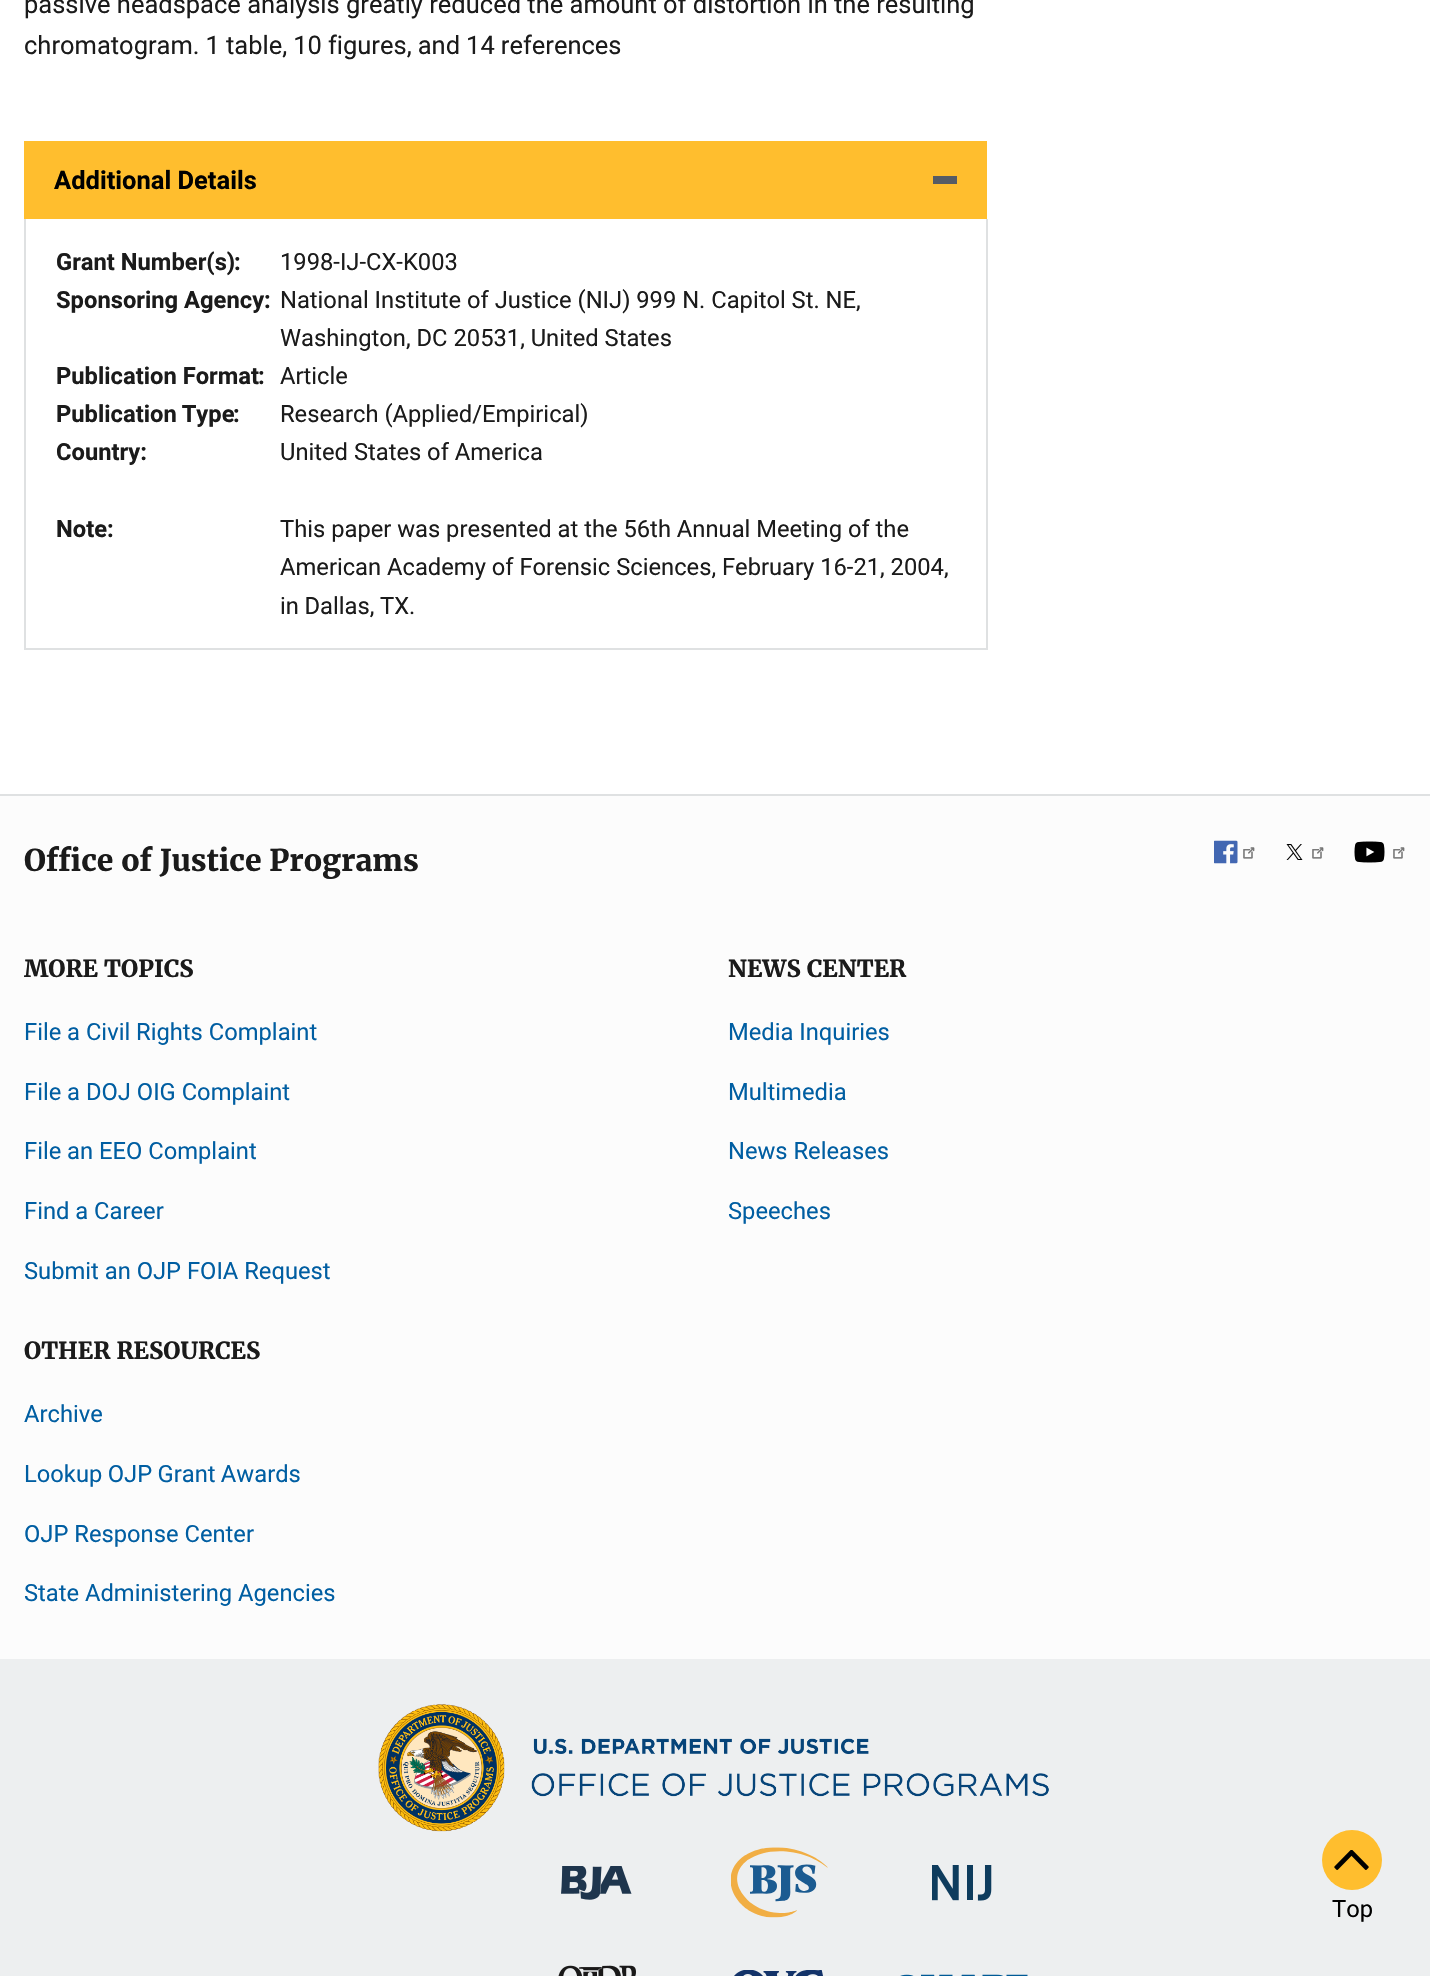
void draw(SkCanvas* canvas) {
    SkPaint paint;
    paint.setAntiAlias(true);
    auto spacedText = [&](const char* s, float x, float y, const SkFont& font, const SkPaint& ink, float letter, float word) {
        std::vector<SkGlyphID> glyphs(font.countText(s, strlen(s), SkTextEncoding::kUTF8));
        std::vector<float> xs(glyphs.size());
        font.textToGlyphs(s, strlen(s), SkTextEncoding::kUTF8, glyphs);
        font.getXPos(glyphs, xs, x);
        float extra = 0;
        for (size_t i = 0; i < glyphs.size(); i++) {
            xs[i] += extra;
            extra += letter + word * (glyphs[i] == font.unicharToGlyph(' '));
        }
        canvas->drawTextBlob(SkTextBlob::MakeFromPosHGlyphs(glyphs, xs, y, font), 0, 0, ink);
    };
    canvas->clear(0xFFFFFFFF);
    SkFont font1(fontMgr->matchFamilyStyle("Roboto", SkFontStyle::Normal()), 25.5f);
    font1.setSubpixel(true);
    paint.setColor(0xFF1B1B1B);
    canvas->drawString("passive headspace analysis greatly reduced the amount of distortion in the resulting", 24, 13, font1, paint);
    spacedText("chromatogram. 1 table, 10 figures, and 14 references", 24, 54, font1, paint, 0, -0.25f);
    paint.setColor(0xFFFFBE2E);
    canvas->drawRect(SkRect::MakeXYWH(24, 141, 963, 78), paint);
    paint.setColor(0xFF565C65);
    canvas->drawRect(SkRect::MakeXYWH(933, 176, 24, 8), paint);
    SkFont font2(fontMgr->matchFamilyStyle("Roboto", SkFontStyle::Bold()), 25.5f);
    font2.setSubpixel(true);
    paint.setColor(0xFF000000);
    canvas->drawString("Additional Details", 54, 189, font2, paint);
    paint.setColor(0xFFDFE1E2);
    canvas->drawRect(SkRect::MakeXYWH(986, 219, 2, 431), paint);
    canvas->drawRect(SkRect::MakeXYWH(24, 648, 963, 2), paint);
    canvas->drawRect(SkRect::MakeXYWH(24, 219, 2, 431), paint);
    SkFont font3(fontMgr->matchFamilyStyle("Roboto", SkFontStyle::Bold()), 23.75f);
    font3.setSubpixel(true);
    paint.setColor(0xFF1B1B1B);
    canvas->drawString("Grant Number(s)", 56, 270, font3, paint);
    canvas->drawString(":", 234, 270, font3, paint);
    SkFont font4(fontMgr->matchFamilyStyle("Roboto", SkFontStyle::Normal()), 23.75f);
    font4.setSubpixel(true);
    canvas->drawString("1998-IJ-CX-K003", 280, 270, font4, paint);
    canvas->drawString("Sponsoring Agency:", 56, 308, font3, paint);
    canvas->drawString("National Institute of Justice (NIJ) 999 N. Capitol St. NE", 280, 308, font4, paint);
    canvas->drawString(",", 856, 308, font4, paint);
    canvas->drawString("Washington", 280, 346, font4, paint);
    canvas->drawString(", DC 20531, United States", 406, 346, font4, paint);
    canvas->drawString("Publication Format", 56, 384, font3, paint);
    canvas->drawString(":", 258, 384, font3, paint);
    canvas->drawString("Article", 280, 384, font4, paint);
    spacedText("Publication Type", 56, 422, font3, paint, 0, -1);
    canvas->drawString(":", 233, 422, font3, paint);
    canvas->drawString("Research (Applied/Empirical)", 280, 422, font4, paint);
    canvas->drawString("Country:", 56, 460, font3, paint);
    canvas->drawString("United States of America", 280, 460, font4, paint);
    canvas->drawString("Note:", 56, 537, font3, paint);
    canvas->drawString("This paper was presented at the 56th Annual Meeting of the", 280, 537, font4, paint);
    canvas->drawString("American Academy of Forensic Sciences, February 16-21, 2004,", 280, 575, font4, paint);
    spacedText("in Dallas, TX.", 280, 614, font4, paint, 0, -0.25f);
    paint.setColor(0xFFFCFCFC);
    canvas->drawRect(SkRect::MakeXYWH(0, 796, 1430, 863), paint);
    paint.setColor(0xFFDFE1E2);
    canvas->drawRect(SkRect::MakeXYWH(0, 794, 1430, 2), paint);
    SkFont font5(fontMgr->matchFamilyStyle("Merriweather", SkFontStyle::Bold()), 30);
    font5.setSubpixel(true);
    paint.setColor(0xFF1B1B1B);
    canvas->drawString("Office of Justice Programs", 24, 871, font5, paint);
    canvas->drawImageRect(SkImages::DeferredFromEncodedData(SkData::MakeFromFileName("img1.png")), SkRect::MakeXYWH(1214, 840, 24, 24), SkSamplingOptions());
    canvas->drawImageRect(SkImages::DeferredFromEncodedData(SkData::MakeFromFileName("img2.png")), SkRect::MakeXYWH(1243, 847, 12, 12), SkSamplingOptions());
    canvas->drawImageRect(SkImages::DeferredFromEncodedData(SkData::MakeFromFileName("img3.png")), SkRect::MakeXYWH(1286, 844, 17, 16), SkSamplingOptions());
    canvas->drawImageRect(SkImages::DeferredFromEncodedData(SkData::MakeFromFileName("img2.png")), SkRect::MakeXYWH(1312, 847, 12, 12), SkSamplingOptions());
    canvas->drawImageRect(SkImages::DeferredFromEncodedData(SkData::MakeFromFileName("img4.png")), SkRect::MakeXYWH(1354, 841, 31, 22), SkSamplingOptions());
    canvas->drawImageRect(SkImages::DeferredFromEncodedData(SkData::MakeFromFileName("img2.png")), SkRect::MakeXYWH(1393, 847, 12, 12), SkSamplingOptions());
    SkFont font6(fontMgr->matchFamilyStyle("Merriweather", SkFontStyle::Bold()), 23.5f);
    font6.setSubpixel(true);
    canvas->drawString("MORE TOPICS", 24, 977, font6, paint);
    paint.setColor(0xFF005EA2);
    canvas->drawString("File a Civil Rights Complaint", 24, 1040, font4, paint);
    canvas->drawString("File a DOJ OIG Complaint", 24, 1100, font4, paint);
    canvas->drawString("File an EEO Complaint", 24, 1159, font4, paint);
    canvas->drawString("Find a Career", 24, 1219, font4, paint);
    canvas->drawString("Submit an OJP FOIA Request", 24, 1279, font4, paint);
    paint.setColor(0xFF1B1B1B);
    canvas->drawString("NEWS CENTER", 728, 977, font6, paint);
    paint.setColor(0xFF005EA2);
    canvas->drawString("Media Inquiries", 728, 1040, font4, paint);
    canvas->drawString("Multimedia", 728, 1100, font4, paint);
    canvas->drawString("News Releases", 728, 1159, font4, paint);
    canvas->drawString("Speeches", 728, 1219, font4, paint);
    paint.setColor(0xFF1B1B1B);
    canvas->drawString("OTHER RESOURCES", 24, 1359, font6, paint);
    paint.setColor(0xFF005EA2);
    canvas->drawString("Archive", 24, 1422, font4, paint);
    spacedText("Lookup OJP Grant Awards", 24, 1482, font4, paint, 0, -0.5f);
    canvas->drawString("OJP Response Center", 24, 1542, font4, paint);
    canvas->drawString("State Administering Agencies", 24, 1601, font4, paint);
    paint.setColor(0xFFEDEFF0);
    canvas->drawRect(SkRect::MakeXYWH(0, 1659, 1430, 317), paint);
    canvas->drawImageRect(SkImages::DeferredFromEncodedData(SkData::MakeFromFileName("img5.png")), SkRect::MakeXYWH(378, 1704, 671, 128), SkSamplingOptions());
    canvas->drawImageRect(SkImages::DeferredFromEncodedData(SkData::MakeFromFileName("img6.png")), SkRect::MakeXYWH(561, 1866, 71, 34), SkSamplingOptions());
    canvas->drawImageRect(SkImages::DeferredFromEncodedData(SkData::MakeFromFileName("img7.png")), SkRect::MakeXYWH(731, 1847, 97, 71), SkSamplingOptions());
    canvas->drawImageRect(SkImages::DeferredFromEncodedData(SkData::MakeFromFileName("img8.png")), SkRect::MakeXYWH(932, 1865, 60, 36), SkSamplingOptions());
    canvas->drawImageRect(SkImages::DeferredFromEncodedData(SkData::MakeFromFileName("img9.png")), SkRect::MakeXYWH(558, 1965, 78, 11), SkSamplingOptions());
    canvas->drawImageRect(SkImages::DeferredFromEncodedData(SkData::MakeFromFileName("img10.png")), SkRect::MakeXYWH(734, 1970, 89, 6), SkSamplingOptions());
    canvas->drawImageRect(SkImages::DeferredFromEncodedData(SkData::MakeFromFileName("img11.png")), SkRect::MakeXYWH(900, 1974, 128, 2), SkSamplingOptions());
    paint.setColor(0xFFFFBE2E);
    canvas->drawCircle(1352, 1860, 30, paint);
    canvas->drawImageRect(SkImages::DeferredFromEncodedData(SkData::MakeFromFileName("img12.png")), SkRect::MakeXYWH(1334, 1850, 35, 20), SkSamplingOptions());
    paint.setColor(0xFF000000);
    canvas->drawString("Top", 1332, 1917, font4, paint);
}
